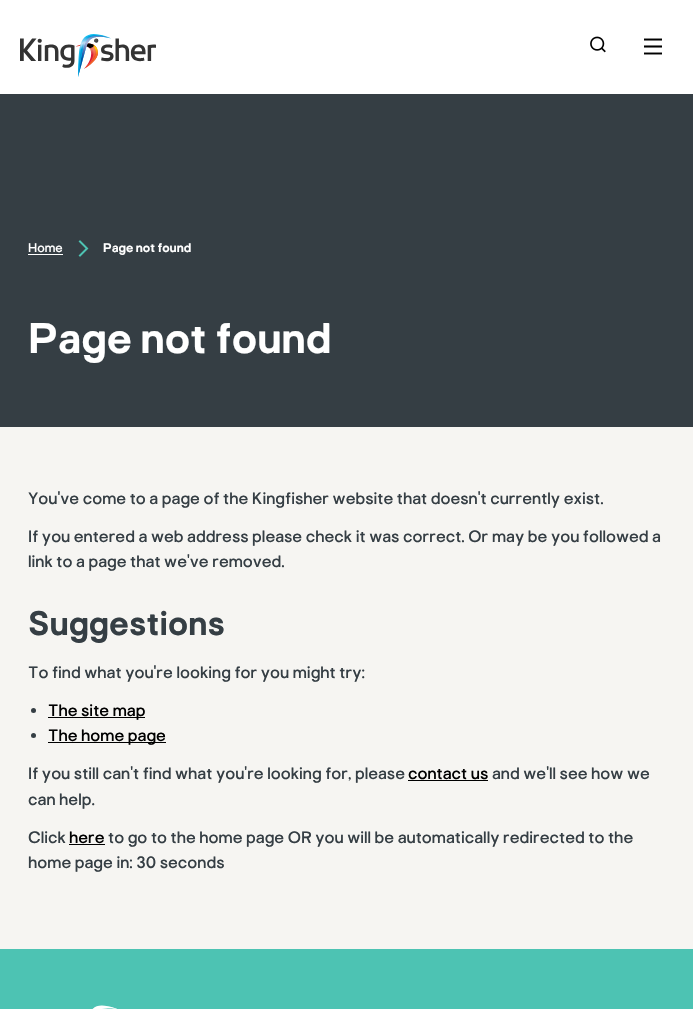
void draw(SkCanvas* canvas) {
    SkPaint paint;
    paint.setAntiAlias(true);
    canvas->clear(0xFFF6F5F2);
    paint.setColor(0xFFFFFFFF);
    canvas->drawRect(SkRect::MakeXYWH(0, 0, 693, 94), paint);
    canvas->drawImageRect(SkImages::DeferredFromEncodedData(SkData::MakeFromFileName("img1.png")), SkRect::MakeXYWH(20, 34, 136, 43), SkSamplingOptions());
    canvas->drawImageRect(SkImages::DeferredFromEncodedData(SkData::MakeFromFileName("img2.png")), SkRect::MakeXYWH(590, 36, 16, 17), SkSamplingOptions());
    canvas->drawImageRect(SkImages::DeferredFromEncodedData(SkData::MakeFromFileName("img3.png")), SkRect::MakeXYWH(644, 38, 18, 17), SkSamplingOptions());
    paint.setColor(0xFF353E44);
    canvas->drawRect(SkRect::MakeXYWH(0, 94, 693, 333), paint);
    SkFont font1(fontMgr->matchFamilyStyle("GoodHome", SkFontStyle::Normal()), 12.5f);
    font1.setSubpixel(true);
    paint.setColor(0xFFFFFFFF);
    canvas->drawString("Home", 28, 252, font1, paint);
    canvas->drawRect(SkRect::MakeXYWH(28, 254, 35, 1), paint);
    canvas->drawImageRect(SkImages::DeferredFromEncodedData(SkData::MakeFromFileName("img4.png")), SkRect::MakeXYWH(78, 240, 11, 17), SkSamplingOptions());
    SkFont font2(fontMgr->matchFamilyStyle("GoodHome", SkFontStyle::Bold()), 12.5f);
    font2.setSubpixel(true);
    canvas->drawString("Page not found", 103, 252, font2, paint);
    SkFont font3(fontMgr->matchFamilyStyle("GoodHome", SkFontStyle::Bold()), 43);
    font3.setSubpixel(true);
    canvas->drawString("Page not found", 28, 353, font3, paint);
    SkFont font4(fontMgr->matchFamilyStyle("GoodHome", SkFontStyle::Normal()), 16.6f);
    font4.setSubpixel(true);
    paint.setColor(0xFF353E44);
    canvas->drawString("You've come to a page of the Kingfisher website that doesn't currently exist.", 28, 504, font4, paint);
    canvas->drawString("If you entered a web address please check it was correct. Or may be you followed a", 28, 542, font4, paint);
    canvas->drawString("link to a page that we've removed.", 28, 567, font4, paint);
    SkFont font5(fontMgr->matchFamilyStyle("GoodHome", SkFontStyle::Bold()), 34);
    font5.setSubpixel(true);
    canvas->drawString("Suggestions", 28, 635, font5, paint);
    canvas->drawString("To find what you're looking for you might try:", 28, 678, font4, paint);
    canvas->drawCircle(33.5f, 710.5f, 2.5f, paint);
    paint.setColor(0xFF000000);
    canvas->drawRect(SkRect::MakeXYWH(48, 717, 97, 1), paint);
    canvas->drawString("The site map", 48, 716, font4, paint);
    paint.setColor(0xFF353E44);
    canvas->drawCircle(33.5f, 735.5f, 2.5f, paint);
    paint.setColor(0xFF000000);
    canvas->drawRect(SkRect::MakeXYWH(48, 742, 118, 1), paint);
    canvas->drawString("The home page", 48, 741, font4, paint);
    paint.setColor(0xFF353E44);
    canvas->drawString("If you still can't find what you're looking for, please", 28, 779, font4, paint);
    paint.setColor(0xFF000000);
    canvas->drawString("contact us", 408, 779, font4, paint);
    canvas->drawRect(SkRect::MakeXYWH(408, 780, 80, 1), paint);
    paint.setColor(0xFF353E44);
    canvas->drawString("and we'll see how we", 492, 779, font4, paint);
    canvas->drawString("can help.", 28, 805, font4, paint);
    canvas->drawString("Click", 28, 843, font4, paint);
    paint.setColor(0xFF000000);
    canvas->drawString("here", 69, 843, font4, paint);
    canvas->drawRect(SkRect::MakeXYWH(69, 844, 36, 1), paint);
    paint.setColor(0xFF353E44);
    canvas->drawString("to go to the home page OR you will be automatically redirected to the", 108, 843, font4, paint);
    canvas->drawString("home page in: 30 seconds", 28, 868, font4, paint);
    paint.setColor(0xFF4DC3B3);
    canvas->drawRect(SkRect::MakeXYWH(0, 949, 693, 60), paint);
    canvas->drawImageRect(SkImages::DeferredFromEncodedData(SkData::MakeFromFileName("img5.png")), SkRect::MakeXYWH(92, 1005, 25, 4), SkSamplingOptions());
}
